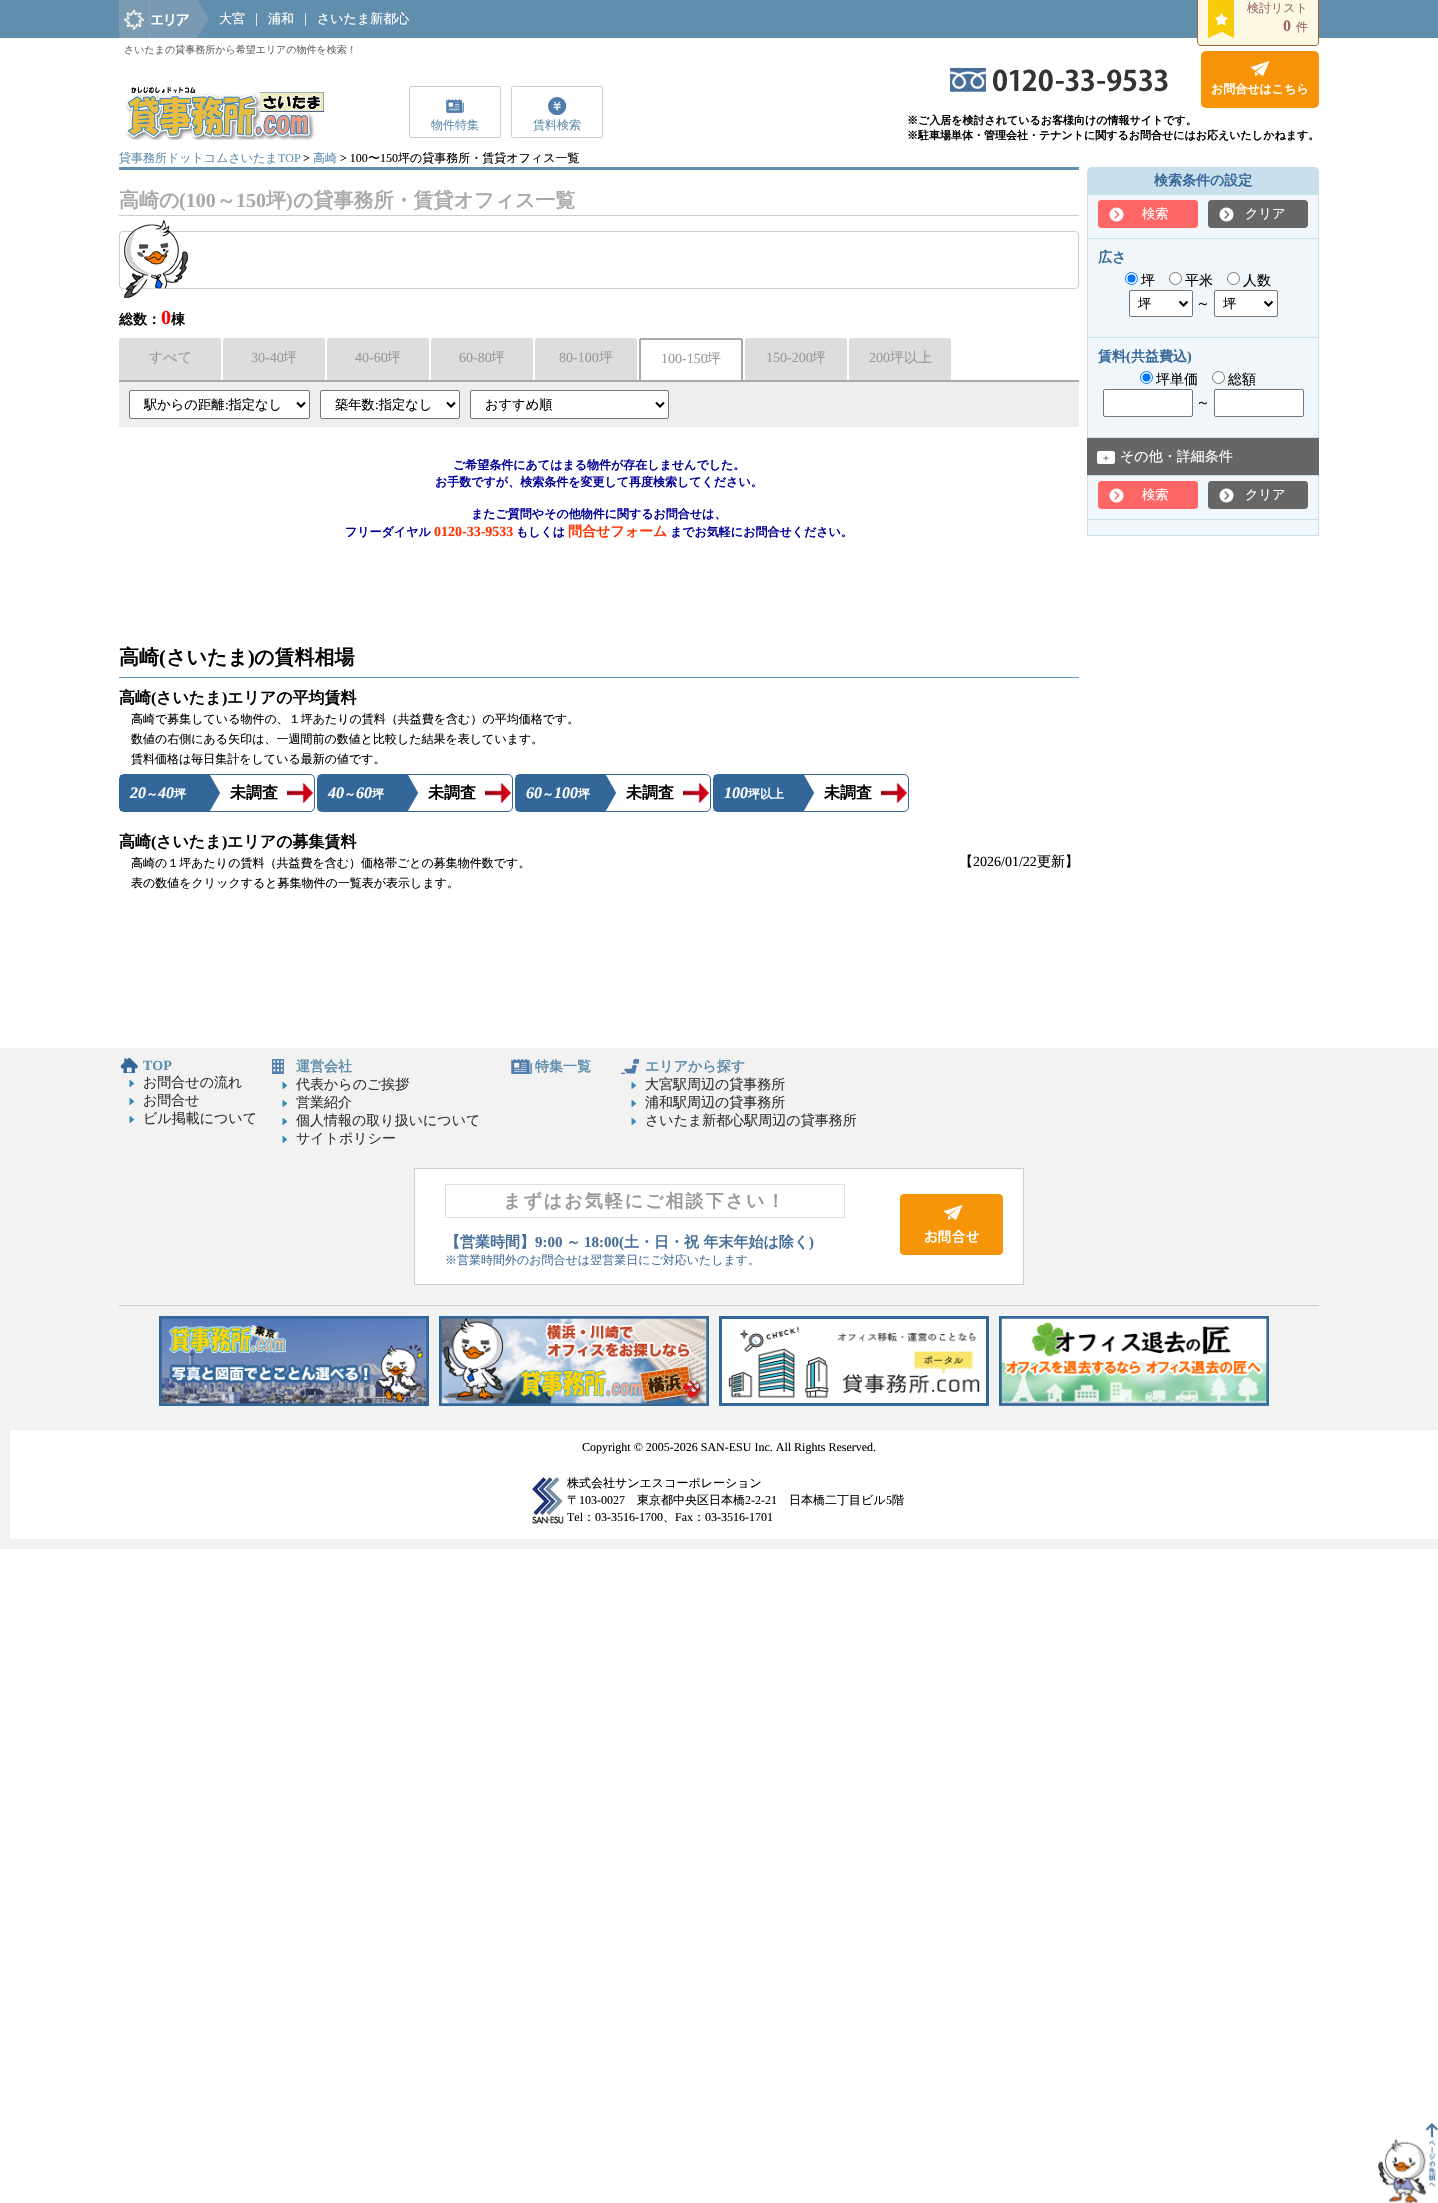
void draw(SkCanvas* canvas) {
    SkPaint paint;
    paint.setAntiAlias(true);
    auto spacedText = [&](const char* s, float x, float y, const SkFont& font, const SkPaint& ink, float letter, float word) {
        std::vector<SkGlyphID> glyphs(font.countText(s, strlen(s), SkTextEncoding::kUTF8));
        std::vector<float> xs(glyphs.size());
        font.textToGlyphs(s, strlen(s), SkTextEncoding::kUTF8, glyphs);
        font.getXPos(glyphs, xs, x);
        float extra = 0;
        for (size_t i = 0; i < glyphs.size(); i++) {
            xs[i] += extra;
            extra += letter + word * (glyphs[i] == font.unicharToGlyph(' '));
        }
        canvas->drawTextBlob(SkTextBlob::MakeFromPosHGlyphs(glyphs, xs, y, font), 0, 0, ink);
    };
    canvas->clear(0xFFFFFFFF);
    paint.setColor(0xFF628EAD);
    canvas->drawRect(SkRect::MakeXYWH(0, 0, 1438, 38), paint);
    canvas->drawImageRect(SkImages::DeferredFromEncodedData(SkData::MakeFromFileName("img1.png")), SkRect::MakeXYWH(119, 0, 90, 38), SkSamplingOptions());
    SkFont font1(fontMgr->matchFamilyStyle("WenQuanYi Zen Hei", SkFontStyle(500, SkFontStyle::kNormal_Width, SkFontStyle::kUpright_Slant)), 13);
    font1.setSubpixel(true);
    paint.setColor(0xFFFFFFFF);
    canvas->drawString("大宮", 219, 23, font1, paint);
    SkFont font2(fontMgr->matchFamilyStyle("Liberation Serif", SkFontStyle::Normal()), 14);
    font2.setSubpixel(true);
    canvas->drawString("|", 255, 23, font2, paint);
    canvas->drawString("浦和", 268, 23, font1, paint);
    canvas->drawString("|", 304, 23, font2, paint);
    canvas->drawString("さいたま新都心", 317, 23, font1, paint);
    paint.setColor(0xFFFDF8E3);
    canvas->drawPath(SkPathBuilder().moveTo(1197, 0).lineTo(1319, 0).lineTo(1319, 42).cubicTo(1319, 44, 1317, 46, 1315, 46).lineTo(1201, 46).cubicTo(1199, 46, 1197, 44, 1197, 42).close().detach(), paint);
    canvas->drawImageRect(SkImages::DeferredFromEncodedData(SkData::MakeFromFileName("img2.png")), SkRect::MakeXYWH(1208, 0, 26, 38), SkSamplingOptions());
    paint.setColor(0xFF996633);
    canvas->drawPath(SkPathBuilder(SkPathFillType::kEvenOdd).moveTo(1197, 0).lineTo(1319, 0).lineTo(1319, 42).cubicTo(1319, 44, 1317, 46, 1315, 46).lineTo(1201, 46).cubicTo(1199, 46, 1197, 44, 1197, 42).close().moveTo(1198, 0).lineTo(1318, 0).lineTo(1318, 42).cubicTo(1318, 44, 1317, 45, 1315, 45).lineTo(1201, 45).cubicTo(1199, 45, 1198, 44, 1198, 42).close().detach(), paint);
    SkFont font3(fontMgr->matchFamilyStyle("WenQuanYi Zen Hei", SkFontStyle(500, SkFontStyle::kNormal_Width, SkFontStyle::kUpright_Slant)), 12);
    font3.setSubpixel(true);
    paint.setColor(0xFF996666);
    canvas->drawString("検討リスト", 1247, 12, font3, paint);
    SkFont font4(fontMgr->matchFamilyStyle("Liberation Serif", SkFontStyle::Bold()), 16);
    font4.setSubpixel(true);
    canvas->drawString("0", 1283, 31, font4, paint);
    canvas->drawString("件", 1296, 31, font3, paint);
    SkFont font5(fontMgr->matchFamilyStyle("WenQuanYi Zen Hei", SkFontStyle(500, SkFontStyle::kNormal_Width, SkFontStyle::kUpright_Slant)), 10);
    font5.setSubpixel(true);
    paint.setColor(0xFF666666);
    canvas->drawString("さいたまの貸事務所から希望エリアの物件を検索！", 124, 53, font5, paint);
    canvas->drawImageRect(SkImages::DeferredFromEncodedData(SkData::MakeFromFileName("img3.png")), SkRect::MakeXYWH(125, 87, 199, 53), SkSamplingOptions());
    canvas->drawImageRect(SkImages::DeferredFromEncodedData(SkData::MakeFromFileName("img4.png")), SkRect::MakeXYWH(950, 68, 218, 24), SkSamplingOptions());
    paint.setColor(0xFFF79307);
    canvas->drawRoundRect(SkRect::MakeXYWH(1201, 51, 118, 57), 5, 5, paint);
    canvas->drawImageRect(SkImages::DeferredFromEncodedData(SkData::MakeFromFileName("img5.png")), SkRect::MakeXYWH(1251, 61, 19, 15), SkSamplingOptions());
    SkFont font6(fontMgr->matchFamilyStyle("WenQuanYi Zen Hei", SkFontStyle::Bold()), 12);
    font6.setSubpixel(true);
    paint.setColor(0xFFFFFFFF);
    canvas->drawString("お問合せはこちら", 1211, 93, font6, paint);
    canvas->drawImageRect(SkImages::DeferredFromEncodedData(SkData::MakeFromFileName("img6.png")), SkRect::MakeXYWH(446, 99, 18, 14), SkSamplingOptions());
    paint.setStyle(SkPaint::kStroke_Style);
    paint.setStrokeWidth(1);
    paint.setColor(0xFFCCCCCC);
    canvas->drawRoundRect(SkRect::MakeXYWH(409.5f, 86.5f, 91, 51), 1.5f, 1.5f, paint);
    paint.setStyle(SkPaint::kFill_Style);
    paint.setColor(0xFF628EAD);
    canvas->drawString("物件特集", 431, 129, font3, paint);
    canvas->drawImageRect(SkImages::DeferredFromEncodedData(SkData::MakeFromFileName("img7.png")), SkRect::MakeXYWH(548, 97, 18, 18), SkSamplingOptions());
    paint.setStyle(SkPaint::kStroke_Style);
    paint.setColor(0xFFCCCCCC);
    canvas->drawRoundRect(SkRect::MakeXYWH(511.5f, 86.5f, 91, 51), 1.5f, 1.5f, paint);
    paint.setStyle(SkPaint::kFill_Style);
    paint.setColor(0xFF628EAD);
    canvas->drawString("賃料検索", 533, 129, font3, paint);
    SkFont font7(fontMgr->matchFamilyStyle("WenQuanYi Zen Hei", SkFontStyle::Bold()), 11);
    font7.setSubpixel(true);
    paint.setColor(0xFF000000);
    canvas->drawString("※ご入居を検討されているお客様向けの情報サイトです。", 907, 124, font7, paint);
    canvas->drawString("※駐車場単体・管理会社・テナントに関するお問合せにはお応えいたしかねます。", 907, 139, font7, paint);
    paint.setColor(0xFF628EAD);
    canvas->drawString("貸事務所ドットコムさいたま", 119, 162, font3, paint);
    SkFont font8(fontMgr->matchFamilyStyle("Liberation Serif", SkFontStyle::Normal()), 12);
    font8.setSubpixel(true);
    canvas->drawString("TOP", 278, 162, font8, paint);
    paint.setColor(0xFF000000);
    canvas->drawString(">", 303, 162, font8, paint);
    paint.setColor(0xFF628EAD);
    canvas->drawString("高崎", 313, 162, font3, paint);
    paint.setColor(0xFF000000);
    canvas->drawString("> 100", 340, 162, font8, paint);
    canvas->drawString("〜", 368, 162, font3, paint);
    canvas->drawString("150", 380, 162, font8, paint);
    canvas->drawString("坪の貸事務所・賃貸オフィス一覧", 398, 162, font3, paint);
    paint.setColor(0xFF628EAD);
    canvas->drawRect(SkRect::MakeXYWH(119, 167, 960, 3), paint);
    paint.setColor(0xFFCCCCCC);
    canvas->drawRect(SkRect::MakeXYWH(119, 215, 960, 1), paint);
    SkFont font9(fontMgr->matchFamilyStyle("WenQuanYi Zen Hei", SkFontStyle::Bold()), 20);
    font9.setSubpixel(true);
    paint.setColor(0xFFAAAAAA);
    canvas->drawString("高崎の", 119, 207, font9, paint);
    SkFont font10(fontMgr->matchFamilyStyle("Liberation Serif", SkFontStyle::Bold()), 20);
    font10.setSubpixel(true);
    canvas->drawString("(100", 179, 207, font10, paint);
    canvas->drawString("～", 216, 207, font9, paint);
    canvas->drawString("150", 236, 207, font10, paint);
    canvas->drawString("坪", 266, 207, font9, paint);
    canvas->drawString(")", 286, 207, font10, paint);
    canvas->drawString("の貸事務所・賃貸オフィス一覧", 293, 207, font9, paint);
    paint.setStyle(SkPaint::kStroke_Style);
    paint.setColor(0xFFCCCCCC);
    canvas->drawRoundRect(SkRect::MakeXYWH(119.5f, 231.5f, 959, 57), 3.5f, 3.5f, paint);
    canvas->drawImageRect(SkImages::DeferredFromEncodedData(SkData::MakeFromFileName("img8.png")), SkRect::MakeXYWH(124, 220, 64, 78), SkSamplingOptions());
    SkFont font11(fontMgr->matchFamilyStyle("WenQuanYi Zen Hei", SkFontStyle::Bold()), 14);
    font11.setSubpixel(true);
    paint.setStyle(SkPaint::kFill_Style);
    paint.setColor(0xFF000000);
    canvas->drawString("総数：", 119, 324, font11, paint);
    paint.setColor(0xFFFF0000);
    canvas->drawString("0", 161, 324, font10, paint);
    paint.setColor(0xFF000000);
    canvas->drawString("棟", 171, 324, font11, paint);
    paint.setColor(0xFFAAAAAA);
    canvas->drawRect(SkRect::MakeXYWH(119, 380, 960, 2), paint);
    paint.setColor(0xFFDDDDDD);
    canvas->drawPath(SkPathBuilder().moveTo(121, 338.5f).lineTo(219, 338.5f).cubicTo(220, 338.5f, 220.5f, 339, 220.5f, 340).lineTo(220.5f, 379.5f).lineTo(119.5f, 379.5f).lineTo(119.5f, 340).cubicTo(119.5f, 339, 120, 338.5f, 121, 338.5f).close().detach(), paint);
    paint.setStyle(SkPaint::kStroke_Style);
    canvas->drawPath(SkPathBuilder().moveTo(121, 338.5f).lineTo(219, 338.5f).cubicTo(220, 338.5f, 220.5f, 339, 220.5f, 340).lineTo(220.5f, 379.5f).lineTo(119.5f, 379.5f).lineTo(119.5f, 340).cubicTo(119.5f, 339, 120, 338.5f, 121, 338.5f).close().detach(), paint);
    SkFont font12(fontMgr->matchFamilyStyle("WenQuanYi Zen Hei", SkFontStyle(500, SkFontStyle::kNormal_Width, SkFontStyle::kUpright_Slant)), 14);
    font12.setSubpixel(true);
    paint.setStyle(SkPaint::kFill_Style);
    paint.setColor(0xFF999999);
    canvas->drawString("すべて", 149, 362, font12, paint);
    paint.setColor(0xFFDDDDDD);
    canvas->drawPath(SkPathBuilder().moveTo(225, 338.5f).lineTo(323, 338.5f).cubicTo(324, 338.5f, 324.5f, 339, 324.5f, 340).lineTo(324.5f, 379.5f).lineTo(223.5f, 379.5f).lineTo(223.5f, 340).cubicTo(223.5f, 339, 224, 338.5f, 225, 338.5f).close().detach(), paint);
    paint.setStyle(SkPaint::kStroke_Style);
    canvas->drawPath(SkPathBuilder().moveTo(225, 338.5f).lineTo(323, 338.5f).cubicTo(324, 338.5f, 324.5f, 339, 324.5f, 340).lineTo(324.5f, 379.5f).lineTo(223.5f, 379.5f).lineTo(223.5f, 340).cubicTo(223.5f, 339, 224, 338.5f, 225, 338.5f).close().detach(), paint);
    paint.setStyle(SkPaint::kFill_Style);
    paint.setColor(0xFF999999);
    canvas->drawString("30-40", 251, 362, font2, paint);
    canvas->drawString("坪", 283, 362, font12, paint);
    paint.setColor(0xFFDDDDDD);
    canvas->drawPath(SkPathBuilder().moveTo(329, 338.5f).lineTo(427, 338.5f).cubicTo(428, 338.5f, 428.5f, 339, 428.5f, 340).lineTo(428.5f, 379.5f).lineTo(327.5f, 379.5f).lineTo(327.5f, 340).cubicTo(327.5f, 339, 328, 338.5f, 329, 338.5f).close().detach(), paint);
    paint.setStyle(SkPaint::kStroke_Style);
    canvas->drawPath(SkPathBuilder().moveTo(329, 338.5f).lineTo(427, 338.5f).cubicTo(428, 338.5f, 428.5f, 339, 428.5f, 340).lineTo(428.5f, 379.5f).lineTo(327.5f, 379.5f).lineTo(327.5f, 340).cubicTo(327.5f, 339, 328, 338.5f, 329, 338.5f).close().detach(), paint);
    paint.setStyle(SkPaint::kFill_Style);
    paint.setColor(0xFF999999);
    canvas->drawString("40-60", 355, 362, font2, paint);
    canvas->drawString("坪", 387, 362, font12, paint);
    paint.setColor(0xFFDDDDDD);
    canvas->drawPath(SkPathBuilder().moveTo(433, 338.5f).lineTo(531, 338.5f).cubicTo(532, 338.5f, 532.5f, 339, 532.5f, 340).lineTo(532.5f, 379.5f).lineTo(431.5f, 379.5f).lineTo(431.5f, 340).cubicTo(431.5f, 339, 432, 338.5f, 433, 338.5f).close().detach(), paint);
    paint.setStyle(SkPaint::kStroke_Style);
    canvas->drawPath(SkPathBuilder().moveTo(433, 338.5f).lineTo(531, 338.5f).cubicTo(532, 338.5f, 532.5f, 339, 532.5f, 340).lineTo(532.5f, 379.5f).lineTo(431.5f, 379.5f).lineTo(431.5f, 340).cubicTo(431.5f, 339, 432, 338.5f, 433, 338.5f).close().detach(), paint);
    paint.setStyle(SkPaint::kFill_Style);
    paint.setColor(0xFF999999);
    canvas->drawString("60-80", 459, 362, font2, paint);
    canvas->drawString("坪", 491, 362, font12, paint);
    paint.setColor(0xFFDDDDDD);
    canvas->drawPath(SkPathBuilder().moveTo(537, 338.5f).lineTo(635, 338.5f).cubicTo(636, 338.5f, 636.5f, 339, 636.5f, 340).lineTo(636.5f, 379.5f).lineTo(535.5f, 379.5f).lineTo(535.5f, 340).cubicTo(535.5f, 339, 536, 338.5f, 537, 338.5f).close().detach(), paint);
    paint.setStyle(SkPaint::kStroke_Style);
    canvas->drawPath(SkPathBuilder().moveTo(537, 338.5f).lineTo(635, 338.5f).cubicTo(636, 338.5f, 636.5f, 339, 636.5f, 340).lineTo(636.5f, 379.5f).lineTo(535.5f, 379.5f).lineTo(535.5f, 340).cubicTo(535.5f, 339, 536, 338.5f, 537, 338.5f).close().detach(), paint);
    paint.setStyle(SkPaint::kFill_Style);
    paint.setColor(0xFF999999);
    canvas->drawString("80-100", 559, 362, font2, paint);
    canvas->drawString("坪", 599, 362, font12, paint);
    paint.setColor(0xFFAAAAAA);
    canvas->drawRect(SkRect::MakeXYWH(640, 338, 102, 2), paint);
    canvas->drawRect(SkRect::MakeXYWH(741, 339, 2, 41), paint);
    canvas->drawRect(SkRect::MakeXYWH(639, 339, 2, 41), paint);
    paint.setColor(0xFF999999);
    canvas->drawString("100-150", 661, 363, font2, paint);
    canvas->drawString("坪", 707, 363, font12, paint);
    paint.setColor(0xFFDDDDDD);
    canvas->drawPath(SkPathBuilder().moveTo(747, 338.5f).lineTo(845, 338.5f).cubicTo(846, 338.5f, 846.5f, 339, 846.5f, 340).lineTo(846.5f, 379.5f).lineTo(745.5f, 379.5f).lineTo(745.5f, 340).cubicTo(745.5f, 339, 746, 338.5f, 747, 338.5f).close().detach(), paint);
    paint.setStyle(SkPaint::kStroke_Style);
    canvas->drawPath(SkPathBuilder().moveTo(747, 338.5f).lineTo(845, 338.5f).cubicTo(846, 338.5f, 846.5f, 339, 846.5f, 340).lineTo(846.5f, 379.5f).lineTo(745.5f, 379.5f).lineTo(745.5f, 340).cubicTo(745.5f, 339, 746, 338.5f, 747, 338.5f).close().detach(), paint);
    paint.setStyle(SkPaint::kFill_Style);
    paint.setColor(0xFF999999);
    canvas->drawString("150-200", 766, 362, font2, paint);
    canvas->drawString("坪", 812, 362, font12, paint);
    paint.setColor(0xFFDDDDDD);
    canvas->drawPath(SkPathBuilder().moveTo(851, 338.5f).lineTo(949, 338.5f).cubicTo(950, 338.5f, 950.5f, 339, 950.5f, 340).lineTo(950.5f, 379.5f).lineTo(849.5f, 379.5f).lineTo(849.5f, 340).cubicTo(849.5f, 339, 850, 338.5f, 851, 338.5f).close().detach(), paint);
    paint.setStyle(SkPaint::kStroke_Style);
    canvas->drawPath(SkPathBuilder().moveTo(851, 338.5f).lineTo(949, 338.5f).cubicTo(950, 338.5f, 950.5f, 339, 950.5f, 340).lineTo(950.5f, 379.5f).lineTo(849.5f, 379.5f).lineTo(849.5f, 340).cubicTo(849.5f, 339, 850, 338.5f, 851, 338.5f).close().detach(), paint);
    paint.setStyle(SkPaint::kFill_Style);
    paint.setColor(0xFF999999);
    canvas->drawString("200", 869, 362, font2, paint);
    canvas->drawString("坪以上", 890, 362, font12, paint);
    paint.setColor(0xFFEEEEEE);
    canvas->drawRect(SkRect::MakeXYWH(119, 382, 960, 45), paint);
    paint.setColor(0xFFFFFFFF);
    canvas->drawRoundRect(SkRect::MakeXYWH(129.5f, 390.5f, 180, 28), 1.5f, 1.5f, paint);
    paint.setStyle(SkPaint::kStroke_Style);
    paint.setColor(0xFF767676);
    canvas->drawRoundRect(SkRect::MakeXYWH(129.5f, 390.5f, 180, 28), 1.5f, 1.5f, paint);
    paint.setStrokeWidth(2);
    paint.setColor(0xFF000000);
    canvas->drawPath(SkPathBuilder().moveTo(297, 402.5f).lineTo(301, 406.5f).lineTo(305, 402.5f).detach(), paint);
    SkFont font13(fontMgr->matchFamilyStyle("WenQuanYi Zen Hei", SkFontStyle(500, SkFontStyle::kNormal_Width, SkFontStyle::kUpright_Slant)), 13.25f);
    font13.setSubpixel(true);
    paint.setStyle(SkPaint::kFill_Style);
    canvas->drawString("駅からの距離 指定なし", 144, 409, font13, paint);
    SkFont font14(fontMgr->matchFamilyStyle("Liberation Serif", SkFontStyle::Normal()), 13.25f);
    font14.setSubpixel(true);
    canvas->drawString(":", 225, 409, font14, paint);
    paint.setColor(0xFFFFFFFF);
    canvas->drawRoundRect(SkRect::MakeXYWH(320.5f, 390.5f, 139, 28), 1.5f, 1.5f, paint);
    paint.setStyle(SkPaint::kStroke_Style);
    paint.setStrokeWidth(1);
    paint.setColor(0xFF767676);
    canvas->drawRoundRect(SkRect::MakeXYWH(320.5f, 390.5f, 139, 28), 1.5f, 1.5f, paint);
    paint.setStrokeWidth(2);
    paint.setColor(0xFF000000);
    canvas->drawPath(SkPathBuilder().moveTo(447, 402.5f).lineTo(451, 406.5f).lineTo(455, 402.5f).detach(), paint);
    paint.setStyle(SkPaint::kFill_Style);
    canvas->drawString("築年数 指定なし", 335, 409, font13, paint);
    canvas->drawString(":", 375, 409, font14, paint);
    paint.setColor(0xFFFFFFFF);
    canvas->drawRoundRect(SkRect::MakeXYWH(470.5f, 390.5f, 198, 28), 1.5f, 1.5f, paint);
    paint.setStyle(SkPaint::kStroke_Style);
    paint.setStrokeWidth(1);
    paint.setColor(0xFF767676);
    canvas->drawRoundRect(SkRect::MakeXYWH(470.5f, 390.5f, 198, 28), 1.5f, 1.5f, paint);
    paint.setStrokeWidth(2);
    paint.setColor(0xFF000000);
    canvas->drawPath(SkPathBuilder().moveTo(656, 402.5f).lineTo(660, 406.5f).lineTo(664, 402.5f).detach(), paint);
    paint.setStyle(SkPaint::kFill_Style);
    canvas->drawString("おすすめ順", 485, 409, font13, paint);
    paint.setColor(0xFF000099);
    canvas->drawString("ご希望条件にあてはまる物件が存在しませんでした。", 453, 469, font6, paint);
    canvas->drawString("お手数ですが、検索条件を変更して再度検索してください。", 435, 486, font6, paint);
    canvas->drawString("またご質問やその他物件に関するお問合せは、", 471, 518, font6, paint);
    canvas->drawString("フリーダイヤル", 345, 536, font6, paint);
    SkFont font15(fontMgr->matchFamilyStyle("Liberation Serif", SkFontStyle::Bold()), 14);
    font15.setSubpixel(true);
    paint.setColor(0xFFFF3300);
    canvas->drawString("0120-33-9533", 434, 536, font15, paint);
    paint.setColor(0xFF000099);
    canvas->drawString("もしくは", 516, 536, font6, paint);
    paint.setColor(0xFFFF3300);
    canvas->drawString("問合せフォーム", 568, 536, font11, paint);
    paint.setColor(0xFF000099);
    canvas->drawString("までお気軽にお問合せください。", 670, 536, font6, paint);
    paint.setColor(0xFF6699CC);
    canvas->drawRect(SkRect::MakeXYWH(119, 677, 960, 1), paint);
    paint.setColor(0xFF000000);
    canvas->drawString("高崎", 119, 664, font9, paint);
    canvas->drawString("(", 159, 664, font10, paint);
    canvas->drawString("さいたま", 166, 664, font9, paint);
    canvas->drawString(")", 248, 664, font10, paint);
    canvas->drawString("の賃料相場", 254, 664, font9, paint);
    SkFont font16(fontMgr->matchFamilyStyle("WenQuanYi Zen Hei", SkFontStyle::Bold()), 16);
    font16.setSubpixel(true);
    canvas->drawString("高崎", 119, 703, font16, paint);
    canvas->drawString("(", 151, 703, font4, paint);
    canvas->drawString("さいたま", 156, 703, font16, paint);
    canvas->drawString(")", 222, 703, font4, paint);
    canvas->drawString("エリアの平均賃料", 227, 703, font16, paint);
    canvas->drawString("高崎で募集している物件の、１坪あたりの賃料（共益費を含む）の平均価格です。", 131, 723, font3, paint);
    canvas->drawString("数値の右側にある矢印は、一週間前の数値と比較した結果を表しています。", 131, 743, font3, paint);
    canvas->drawString("賃料価格は毎日集計をしている最新の値です。", 131, 763, font3, paint);
    paint.setStyle(SkPaint::kStroke_Style);
    paint.setStrokeWidth(1);
    paint.setColor(0xFF336699);
    canvas->drawRoundRect(SkRect::MakeXYWH(119.5f, 774.5f, 195, 37), 4.5f, 4.5f, paint);
    canvas->drawImageRect(SkImages::DeferredFromEncodedData(SkData::MakeFromFileName("img9.png")), SkRect::MakeXYWH(120, 775, 100, 36), SkSamplingOptions());
    SkFont font17(fontMgr->matchFamilyStyle("Liberation Serif", SkFontStyle::BoldItalic()), 16);
    font17.setSubpixel(true);
    paint.setStyle(SkPaint::kFill_Style);
    paint.setColor(0xFFFFFFFF);
    canvas->drawString("20", 130, 798, font17, paint);
    canvas->drawString("～", 146, 798, font6, paint);
    canvas->drawString("40", 158, 798, font17, paint);
    canvas->drawString("坪", 174, 798, font6, paint);
    canvas->drawImageRect(SkImages::DeferredFromEncodedData(SkData::MakeFromFileName("img10.png")), SkRect::MakeXYWH(287, 783, 26, 20), SkSamplingOptions());
    paint.setColor(0xFF000000);
    canvas->drawString("未調査", 230, 798, font16, paint);
    paint.setStyle(SkPaint::kStroke_Style);
    paint.setColor(0xFF336699);
    canvas->drawRoundRect(SkRect::MakeXYWH(317.5f, 774.5f, 195, 37), 4.5f, 4.5f, paint);
    canvas->drawImageRect(SkImages::DeferredFromEncodedData(SkData::MakeFromFileName("img9.png")), SkRect::MakeXYWH(318, 775, 100, 36), SkSamplingOptions());
    paint.setStyle(SkPaint::kFill_Style);
    paint.setColor(0xFFFFFFFF);
    canvas->drawString("40", 328, 798, font17, paint);
    canvas->drawString("～", 344, 798, font6, paint);
    canvas->drawString("60", 356, 798, font17, paint);
    canvas->drawString("坪", 372, 798, font6, paint);
    canvas->drawImageRect(SkImages::DeferredFromEncodedData(SkData::MakeFromFileName("img10.png")), SkRect::MakeXYWH(485, 783, 26, 20), SkSamplingOptions());
    paint.setColor(0xFF000000);
    canvas->drawString("未調査", 428, 798, font16, paint);
    paint.setStyle(SkPaint::kStroke_Style);
    paint.setColor(0xFF336699);
    canvas->drawRoundRect(SkRect::MakeXYWH(515.5f, 774.5f, 195, 37), 4.5f, 4.5f, paint);
    canvas->drawImageRect(SkImages::DeferredFromEncodedData(SkData::MakeFromFileName("img9.png")), SkRect::MakeXYWH(516, 775, 100, 36), SkSamplingOptions());
    paint.setStyle(SkPaint::kFill_Style);
    paint.setColor(0xFFFFFFFF);
    canvas->drawString("60", 526, 798, font17, paint);
    canvas->drawString("～", 542, 798, font6, paint);
    canvas->drawString("100", 554, 798, font17, paint);
    canvas->drawString("坪", 578, 798, font6, paint);
    canvas->drawImageRect(SkImages::DeferredFromEncodedData(SkData::MakeFromFileName("img10.png")), SkRect::MakeXYWH(683, 783, 26, 20), SkSamplingOptions());
    paint.setColor(0xFF000000);
    canvas->drawString("未調査", 626, 798, font16, paint);
    paint.setStyle(SkPaint::kStroke_Style);
    paint.setColor(0xFF336699);
    canvas->drawRoundRect(SkRect::MakeXYWH(713.5f, 774.5f, 195, 37), 4.5f, 4.5f, paint);
    canvas->drawImageRect(SkImages::DeferredFromEncodedData(SkData::MakeFromFileName("img9.png")), SkRect::MakeXYWH(714, 775, 100, 36), SkSamplingOptions());
    paint.setStyle(SkPaint::kFill_Style);
    paint.setColor(0xFFFFFFFF);
    canvas->drawString("100", 724, 798, font17, paint);
    canvas->drawString("坪以上", 748, 798, font6, paint);
    canvas->drawImageRect(SkImages::DeferredFromEncodedData(SkData::MakeFromFileName("img10.png")), SkRect::MakeXYWH(881, 783, 26, 20), SkSamplingOptions());
    paint.setColor(0xFF000000);
    canvas->drawString("未調査", 824, 798, font16, paint);
    canvas->drawString("高崎", 119, 847, font16, paint);
    canvas->drawString("(", 151, 847, font4, paint);
    canvas->drawString("さいたま", 156, 847, font16, paint);
    canvas->drawString(")", 222, 847, font4, paint);
    canvas->drawString("エリアの募集賃料", 227, 847, font16, paint);
    canvas->drawString("高崎の１坪あたりの賃料（共益費を含む）価格帯ごとの募集物件数です。", 131, 867, font3, paint);
    canvas->drawString("表の数値をクリックすると募集物件の一覧表が表示します。", 131, 887, font3, paint);
    canvas->drawString("【", 959, 866, font12, paint);
    canvas->drawString("2026/01/22", 973, 866, font2, paint);
    canvas->drawString("更新】", 1037, 866, font12, paint);
    paint.setColor(0xFFC9DFEC);
    canvas->drawPath(SkPathBuilder().moveTo(1092, 167).lineTo(1314, 167).cubicTo(1317, 167, 1319, 169, 1319, 172).lineTo(1319, 195).lineTo(1087, 195).lineTo(1087, 172).cubicTo(1087, 169, 1089, 167, 1092, 167).close().detach(), paint);
    paint.setColor(0xFF336699);
    canvas->drawString("検索条件の設定", 1154, 185, font11, paint);
    paint.setColor(0xFFF1F6FA);
    canvas->drawRect(SkRect::MakeXYWH(1087.5f, 194.5f, 231, 44), paint);
    paint.setStyle(SkPaint::kStroke_Style);
    paint.setColor(0xFFC9DFEC);
    canvas->drawRect(SkRect::MakeXYWH(1087.5f, 194.5f, 231, 44), paint);
    paint.setStyle(SkPaint::kFill_Style);
    paint.setColor(0xFFFF6766);
    canvas->drawRoundRect(SkRect::MakeXYWH(1098, 200, 100, 28), 4, 4, paint);
    canvas->drawImageRect(SkImages::DeferredFromEncodedData(SkData::MakeFromFileName("img11.png")), SkRect::MakeXYWH(1109, 207, 15, 15), SkSamplingOptions());
    paint.setStyle(SkPaint::kStroke_Style);
    canvas->drawRoundRect(SkRect::MakeXYWH(1098.5f, 200.5f, 99, 27), 3.5f, 3.5f, paint);
    paint.setStyle(SkPaint::kFill_Style);
    paint.setColor(0xFFFFFFFF);
    canvas->drawString("検索", 1142, 218, font13, paint);
    paint.setColor(0xFF666666);
    canvas->drawRoundRect(SkRect::MakeXYWH(1208, 200, 100, 28), 4, 4, paint);
    canvas->drawImageRect(SkImages::DeferredFromEncodedData(SkData::MakeFromFileName("img12.png")), SkRect::MakeXYWH(1219, 207, 15, 15), SkSamplingOptions());
    paint.setStyle(SkPaint::kStroke_Style);
    canvas->drawRoundRect(SkRect::MakeXYWH(1208.5f, 200.5f, 99, 27), 3.5f, 3.5f, paint);
    paint.setStyle(SkPaint::kFill_Style);
    paint.setColor(0xFFFFFFFF);
    canvas->drawString("クリア", 1245, 218, font13, paint);
    paint.setColor(0xFFF1F6FA);
    canvas->drawRect(SkRect::MakeXYWH(1087.5f, 238.5f, 231, 99), paint);
    paint.setStyle(SkPaint::kStroke_Style);
    paint.setColor(0xFFC9DFEC);
    canvas->drawRect(SkRect::MakeXYWH(1087.5f, 238.5f, 231, 99), paint);
    paint.setStyle(SkPaint::kFill_Style);
    paint.setColor(0xFF336699);
    canvas->drawString("広さ", 1098, 262, font11, paint);
    paint.setColor(0xFFFFFFFF);
    canvas->drawCircle(1131.5f, 278.5f, 6, paint);
    paint.setStyle(SkPaint::kStroke_Style);
    paint.setColor(0xFF0075FF);
    canvas->drawCircle(1131.5f, 278.5f, 6, paint);
    paint.setStyle(SkPaint::kFill_Style);
    canvas->drawCircle(1131.5f, 278.5f, 4, paint);
    paint.setColor(0xFF000000);
    canvas->drawString("坪", 1141, 285, font12, paint);
    paint.setColor(0xFFFFFFFF);
    canvas->drawCircle(1175.5f, 278.5f, 6, paint);
    paint.setStyle(SkPaint::kStroke_Style);
    paint.setColor(0xFF767676);
    canvas->drawCircle(1175.5f, 278.5f, 6, paint);
    paint.setStyle(SkPaint::kFill_Style);
    paint.setColor(0xFF000000);
    canvas->drawString("平米", 1185, 285, font12, paint);
    paint.setColor(0xFFFFFFFF);
    canvas->drawCircle(1233.5f, 278.5f, 6, paint);
    paint.setStyle(SkPaint::kStroke_Style);
    paint.setColor(0xFF767676);
    canvas->drawCircle(1233.5f, 278.5f, 6, paint);
    paint.setStyle(SkPaint::kFill_Style);
    paint.setColor(0xFF000000);
    canvas->drawString("人数", 1243, 285, font12, paint);
    paint.setColor(0xFFFFFFFF);
    canvas->drawRoundRect(SkRect::MakeXYWH(1129.5f, 290.5f, 63, 26), 1.5f, 1.5f, paint);
    paint.setStyle(SkPaint::kStroke_Style);
    paint.setColor(0xFF767676);
    canvas->drawRoundRect(SkRect::MakeXYWH(1129.5f, 290.5f, 63, 26), 1.5f, 1.5f, paint);
    paint.setStrokeWidth(2);
    paint.setColor(0xFF000000);
    canvas->drawPath(SkPathBuilder().moveTo(1179.5f, 301.5f).lineTo(1183.5f, 305.5f).lineTo(1187.5f, 301.5f).detach(), paint);
    canvas->save();
    canvas->clipRect(SkRect::MakeXYWH(1138, 295, 34, 17));
    paint.setStyle(SkPaint::kFill_Style);
    canvas->drawString("坪", 1138, 308, font13, paint);
    canvas->restore();
    canvas->drawString("～", 1196, 308, font12, paint);
    paint.setColor(0xFFFFFFFF);
    canvas->drawRoundRect(SkRect::MakeXYWH(1214.5f, 290.5f, 63, 26), 1.5f, 1.5f, paint);
    paint.setStyle(SkPaint::kStroke_Style);
    paint.setStrokeWidth(1);
    paint.setColor(0xFF767676);
    canvas->drawRoundRect(SkRect::MakeXYWH(1214.5f, 290.5f, 63, 26), 1.5f, 1.5f, paint);
    paint.setStrokeWidth(2);
    paint.setColor(0xFF000000);
    canvas->drawPath(SkPathBuilder().moveTo(1264.5f, 301.5f).lineTo(1268.5f, 305.5f).lineTo(1272.5f, 301.5f).detach(), paint);
    canvas->save();
    canvas->clipRect(SkRect::MakeXYWH(1223, 295, 34, 17));
    paint.setStyle(SkPaint::kFill_Style);
    canvas->drawString("坪", 1223, 308, font13, paint);
    canvas->restore();
    paint.setColor(0xFFF1F6FA);
    canvas->drawRect(SkRect::MakeXYWH(1087.5f, 337.5f, 231, 100), paint);
    paint.setStyle(SkPaint::kStroke_Style);
    paint.setStrokeWidth(1);
    paint.setColor(0xFFC9DFEC);
    canvas->drawRect(SkRect::MakeXYWH(1087.5f, 337.5f, 231, 100), paint);
    paint.setStyle(SkPaint::kFill_Style);
    paint.setColor(0xFF336699);
    canvas->drawString("賃料", 1098, 361, font11, paint);
    canvas->drawString("(", 1126, 361, font15, paint);
    canvas->drawString("共益費込", 1131, 361, font11, paint);
    canvas->drawString(")", 1187, 361, font15, paint);
    paint.setColor(0xFFFFFFFF);
    canvas->drawCircle(1146.5f, 377.5f, 6, paint);
    paint.setStyle(SkPaint::kStroke_Style);
    paint.setColor(0xFF0075FF);
    canvas->drawCircle(1146.5f, 377.5f, 6, paint);
    paint.setStyle(SkPaint::kFill_Style);
    canvas->drawCircle(1146.5f, 377.5f, 4, paint);
    paint.setColor(0xFF000000);
    canvas->drawString("坪単価", 1156, 384, font12, paint);
    paint.setColor(0xFFFFFFFF);
    canvas->drawCircle(1218.5f, 377.5f, 6, paint);
    paint.setStyle(SkPaint::kStroke_Style);
    paint.setColor(0xFF767676);
    canvas->drawCircle(1218.5f, 377.5f, 6, paint);
    paint.setStyle(SkPaint::kFill_Style);
    paint.setColor(0xFF000000);
    canvas->drawString("総額", 1228, 384, font12, paint);
    paint.setColor(0xFFFFFFFF);
    canvas->drawRoundRect(SkRect::MakeXYWH(1103.5f, 389.5f, 89, 27), 1.5f, 1.5f, paint);
    paint.setStyle(SkPaint::kStroke_Style);
    paint.setColor(0xFF767676);
    canvas->drawRoundRect(SkRect::MakeXYWH(1103.5f, 389.5f, 89, 27), 1.5f, 1.5f, paint);
    paint.setStyle(SkPaint::kFill_Style);
    paint.setColor(0xFF000000);
    canvas->drawString("～", 1196, 407, font12, paint);
    paint.setColor(0xFFFFFFFF);
    canvas->drawRoundRect(SkRect::MakeXYWH(1214.5f, 389.5f, 89, 27), 1.5f, 1.5f, paint);
    paint.setStyle(SkPaint::kStroke_Style);
    paint.setColor(0xFF767676);
    canvas->drawRoundRect(SkRect::MakeXYWH(1214.5f, 389.5f, 89, 27), 1.5f, 1.5f, paint);
    paint.setStyle(SkPaint::kFill_Style);
    paint.setColor(0xFF666666);
    canvas->drawRect(SkRect::MakeXYWH(1087, 438, 232, 37), paint);
    paint.setColor(0xFFFFFFFF);
    canvas->drawRoundRect(SkRect::MakeXYWH(1097.5f, 451.5f, 17, 12), 1.5f, 1.5f, paint);
    paint.setStyle(SkPaint::kStroke_Style);
    canvas->drawRoundRect(SkRect::MakeXYWH(1097.5f, 451.5f, 17, 12), 1.5f, 1.5f, paint);
    paint.setStyle(SkPaint::kFill_Style);
    paint.setColor(0xFF666666);
    canvas->drawString("＋", 1101, 461, font5, paint);
    paint.setColor(0xFFFFFFFF);
    canvas->drawString("その他・詳細条件", 1120, 461, font12, paint);
    paint.setColor(0xFFF1F6FA);
    canvas->drawRect(SkRect::MakeXYWH(1087.5f, 475.5f, 231, 44), paint);
    paint.setStyle(SkPaint::kStroke_Style);
    paint.setColor(0xFFC9DFEC);
    canvas->drawRect(SkRect::MakeXYWH(1087.5f, 475.5f, 231, 44), paint);
    paint.setStyle(SkPaint::kFill_Style);
    paint.setColor(0xFFFF6766);
    canvas->drawRoundRect(SkRect::MakeXYWH(1098, 481, 100, 28), 4, 4, paint);
    canvas->drawImageRect(SkImages::DeferredFromEncodedData(SkData::MakeFromFileName("img11.png")), SkRect::MakeXYWH(1109, 488, 15, 15), SkSamplingOptions());
    paint.setStyle(SkPaint::kStroke_Style);
    canvas->drawRoundRect(SkRect::MakeXYWH(1098.5f, 481.5f, 99, 27), 3.5f, 3.5f, paint);
    paint.setStyle(SkPaint::kFill_Style);
    paint.setColor(0xFFFFFFFF);
    canvas->drawString("検索", 1142, 499, font13, paint);
    paint.setColor(0xFF666666);
    canvas->drawRoundRect(SkRect::MakeXYWH(1208, 481, 100, 28), 4, 4, paint);
    canvas->drawImageRect(SkImages::DeferredFromEncodedData(SkData::MakeFromFileName("img12.png")), SkRect::MakeXYWH(1219, 488, 15, 15), SkSamplingOptions());
    paint.setStyle(SkPaint::kStroke_Style);
    canvas->drawRoundRect(SkRect::MakeXYWH(1208.5f, 481.5f, 99, 27), 3.5f, 3.5f, paint);
    paint.setStyle(SkPaint::kFill_Style);
    paint.setColor(0xFFFFFFFF);
    canvas->drawString("クリア", 1245, 499, font13, paint);
    paint.setColor(0xFFF1F6FA);
    canvas->drawRect(SkRect::MakeXYWH(1087.5f, 519.5f, 231, 16), paint);
    paint.setStyle(SkPaint::kStroke_Style);
    paint.setColor(0xFFC9DFEC);
    canvas->drawRect(SkRect::MakeXYWH(1087.5f, 519.5f, 231, 16), paint);
    paint.setStyle(SkPaint::kFill_Style);
    paint.setColor(0xFFF2F2F2);
    canvas->drawRect(SkRect::MakeXYWH(0, 1048, 1438, 501), paint);
    canvas->drawImageRect(SkImages::DeferredFromEncodedData(SkData::MakeFromFileName("img13.png")), SkRect::MakeXYWH(120, 1058, 18, 15), SkSamplingOptions());
    paint.setColor(0xFF628EAD);
    canvas->drawString("TOP", 143, 1070, font15, paint);
    canvas->drawImageRect(SkImages::DeferredFromEncodedData(SkData::MakeFromFileName("img14.png")), SkRect::MakeXYWH(129, 1080, 5, 7), SkSamplingOptions());
    paint.setColor(0xFF333333);
    canvas->drawString("お問合せの流れ", 143, 1087, font12, paint);
    canvas->drawImageRect(SkImages::DeferredFromEncodedData(SkData::MakeFromFileName("img14.png")), SkRect::MakeXYWH(129, 1098, 5, 7), SkSamplingOptions());
    canvas->drawString("お問合せ", 143, 1105, font12, paint);
    canvas->drawImageRect(SkImages::DeferredFromEncodedData(SkData::MakeFromFileName("img14.png")), SkRect::MakeXYWH(129, 1116, 5, 7), SkSamplingOptions());
    canvas->drawString("ビル掲載について", 143, 1123, font12, paint);
    canvas->drawImageRect(SkImages::DeferredFromEncodedData(SkData::MakeFromFileName("img15.png")), SkRect::MakeXYWH(272, 1059, 12, 15), SkSamplingOptions());
    paint.setColor(0xFF628EAD);
    canvas->drawString("運営会社", 296, 1071, font11, paint);
    canvas->drawImageRect(SkImages::DeferredFromEncodedData(SkData::MakeFromFileName("img14.png")), SkRect::MakeXYWH(282, 1082, 5, 7), SkSamplingOptions());
    paint.setColor(0xFF333333);
    canvas->drawString("代表からのご挨拶", 296, 1089, font12, paint);
    canvas->drawImageRect(SkImages::DeferredFromEncodedData(SkData::MakeFromFileName("img14.png")), SkRect::MakeXYWH(282, 1100, 5, 7), SkSamplingOptions());
    canvas->drawString("営業紹介", 296, 1107, font12, paint);
    canvas->drawImageRect(SkImages::DeferredFromEncodedData(SkData::MakeFromFileName("img14.png")), SkRect::MakeXYWH(282, 1118, 5, 7), SkSamplingOptions());
    canvas->drawString("個人情報の取り扱いについて", 296, 1125, font12, paint);
    canvas->drawImageRect(SkImages::DeferredFromEncodedData(SkData::MakeFromFileName("img14.png")), SkRect::MakeXYWH(282, 1136, 5, 7), SkSamplingOptions());
    canvas->drawString("サイトポリシー", 296, 1143, font12, paint);
    canvas->drawImageRect(SkImages::DeferredFromEncodedData(SkData::MakeFromFileName("img16.png")), SkRect::MakeXYWH(511, 1059, 21, 15), SkSamplingOptions());
    paint.setColor(0xFF628EAD);
    canvas->drawString("特集一覧", 535, 1071, font11, paint);
    canvas->drawImageRect(SkImages::DeferredFromEncodedData(SkData::MakeFromFileName("img17.png")), SkRect::MakeXYWH(621, 1059, 18, 15), SkSamplingOptions());
    canvas->drawString("エリアから探す", 645, 1071, font11, paint);
    canvas->drawImageRect(SkImages::DeferredFromEncodedData(SkData::MakeFromFileName("img14.png")), SkRect::MakeXYWH(631, 1082, 5, 7), SkSamplingOptions());
    paint.setColor(0xFF333333);
    canvas->drawString("大宮駅周辺の貸事務所", 645, 1089, font12, paint);
    canvas->drawImageRect(SkImages::DeferredFromEncodedData(SkData::MakeFromFileName("img14.png")), SkRect::MakeXYWH(631, 1100, 5, 7), SkSamplingOptions());
    canvas->drawString("浦和駅周辺の貸事務所", 645, 1107, font12, paint);
    canvas->drawImageRect(SkImages::DeferredFromEncodedData(SkData::MakeFromFileName("img14.png")), SkRect::MakeXYWH(631, 1118, 5, 7), SkSamplingOptions());
    canvas->drawString("さいたま新都心駅周辺の貸事務所", 645, 1125, font12, paint);
    paint.setColor(0xFFFFFFFF);
    canvas->drawRect(SkRect::MakeXYWH(414.5f, 1168.5f, 609, 116), paint);
    paint.setStyle(SkPaint::kStroke_Style);
    paint.setColor(0xFFCCCCCC);
    canvas->drawRect(SkRect::MakeXYWH(414.5f, 1168.5f, 609, 116), paint);
    paint.setColor(0xFFDEDEDE);
    canvas->drawRect(SkRect::MakeXYWH(445.5f, 1184.5f, 399, 33), paint);
    SkFont font18(fontMgr->matchFamilyStyle("WenQuanYi Zen Hei", SkFontStyle::Bold()), 18);
    font18.setSubpixel(true);
    paint.setStyle(SkPaint::kFill_Style);
    paint.setColor(0xFF999999);
    spacedText("まずはお気軽にご相談下さい！", 503, 1207, font18, paint, 2, 0);
    SkFont font19(fontMgr->matchFamilyStyle("WenQuanYi Zen Hei", SkFontStyle::Bold()), 15);
    font19.setSubpixel(true);
    paint.setColor(0xFF466E99);
    canvas->drawString("【営業時間】", 445, 1247, font19, paint);
    SkFont font20(fontMgr->matchFamilyStyle("Liberation Serif", SkFontStyle::Bold()), 15);
    font20.setSubpixel(true);
    canvas->drawString("9:00", 535, 1247, font20, paint);
    canvas->drawString("～", 566, 1247, font19, paint);
    canvas->drawString("18:00(", 584, 1247, font20, paint);
    canvas->drawString("土・日・祝 年末年始は除く", 624, 1247, font19, paint);
    canvas->drawString(")", 809, 1247, font20, paint);
    canvas->drawString("※営業時間外のお問合せは翌営業日にご対応いたします。", 445, 1264, font3, paint);
    canvas->drawImageRect(SkImages::DeferredFromEncodedData(SkData::MakeFromFileName("img18.png")), SkRect::MakeXYWH(900, 1194, 103, 61), SkSamplingOptions());
    paint.setColor(0xFFCCCCCC);
    canvas->drawRect(SkRect::MakeXYWH(119, 1305, 1200, 1), paint);
    canvas->drawImageRect(SkImages::DeferredFromEncodedData(SkData::MakeFromFileName("img19.png")), SkRect::MakeXYWH(159, 1316, 270, 90), SkSamplingOptions());
    canvas->drawImageRect(SkImages::DeferredFromEncodedData(SkData::MakeFromFileName("img20.png")), SkRect::MakeXYWH(439, 1316, 270, 90), SkSamplingOptions());
    paint.setStyle(SkPaint::kStroke_Style);
    paint.setStrokeWidth(3);
    paint.setColor(0xFF336699);
    canvas->drawRect(SkRect::MakeXYWH(720.5f, 1317.5f, 267, 87), paint);
    canvas->drawImageRect(SkImages::DeferredFromEncodedData(SkData::MakeFromFileName("img21.png")), SkRect::MakeXYWH(722, 1319, 264, 84), SkSamplingOptions());
    canvas->drawImageRect(SkImages::DeferredFromEncodedData(SkData::MakeFromFileName("img22.png")), SkRect::MakeXYWH(999, 1316, 270, 90), SkSamplingOptions());
    paint.setStyle(SkPaint::kFill_Style);
    paint.setColor(0xFFFFFFFF);
    canvas->drawRect(SkRect::MakeXYWH(10, 1430, 1428, 109), paint);
    paint.setColor(0xFF000000);
    canvas->drawString("Copyright © 2005-2026 SAN-ESU Inc. All Rights Reserved.", 582, 1451, font8, paint);
    canvas->drawImageRect(SkImages::DeferredFromEncodedData(SkData::MakeFromFileName("img23.png")), SkRect::MakeXYWH(529, 1475, 36, 50), SkSamplingOptions());
    canvas->drawString("株式会社サンエスコーポレーション", 567, 1487, font3, paint);
    canvas->drawString("〒", 567, 1504, font3, paint);
    canvas->drawString("103-0027", 579, 1504, font8, paint);
    canvas->drawString("東京都中央区日本橋", 637, 1504, font3, paint);
    canvas->drawString("2-2-21", 745, 1504, font8, paint);
    canvas->drawString("日本橋二丁目ビル", 789, 1504, font3, paint);
    canvas->drawString("5", 886, 1504, font8, paint);
    canvas->drawString("階", 892, 1504, font3, paint);
    canvas->drawString("Tel", 567, 1521, font8, paint);
    canvas->drawString("：", 583, 1521, font3, paint);
    canvas->drawString("03-3516-1700", 595, 1521, font8, paint);
    canvas->drawString("Fax", 675, 1521, font8, paint);
    canvas->drawString("：", 693, 1521, font3, paint);
    canvas->drawString("03-3516-1701", 705, 1521, font8, paint);
    canvas->drawString("、", 663, 1521, font3, paint);
    canvas->drawImageRect(SkImages::DeferredFromEncodedData(SkData::MakeFromFileName("img24.png")), SkRect::MakeXYWH(1378, 2123, 60, 80), SkSamplingOptions());
}
